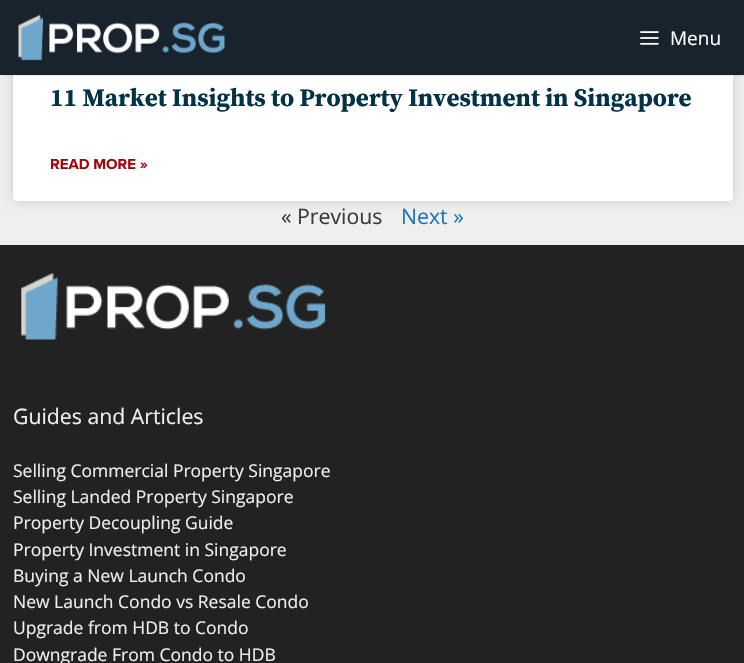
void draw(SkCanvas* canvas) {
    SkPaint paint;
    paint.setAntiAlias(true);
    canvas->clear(0xFFEFEFEF);
    paint.setColor(0x26000000);
    paint.setMaskFilter(SkMaskFilter::MakeBlur(kNormal_SkBlurStyle, 6));
    canvas->drawRoundRect(SkRect::MakeXYWH(13, -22, 720, 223), 4, 4, paint);
    paint.setMaskFilter(nullptr);
    paint.setColor(0xFFFFFFFF);
    canvas->drawRoundRect(SkRect::MakeXYWH(13, -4, 720, 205), 4, 4, paint);
    paint.setColor(0x33000000);
    paint.setMaskFilter(SkMaskFilter::MakeBlur(kNormal_SkBlurStyle, 1));
    canvas->drawRect(SkRect::MakeXYWH(3, 5, 740, 70), paint);
    paint.setMaskFilter(nullptr);
    paint.setColor(0xFF18232E);
    canvas->drawRect(SkRect::MakeXYWH(0, 0, 744, 75), paint);
    canvas->drawImageRect(SkImages::DeferredFromEncodedData(SkData::MakeFromFileName("img1.png")), SkRect::MakeXYWH(18, 14, 207, 47), SkSamplingOptions());
    canvas->drawImageRect(SkImages::DeferredFromEncodedData(SkData::MakeFromFileName("img2.png")), SkRect::MakeXYWH(640, 31, 19, 14), SkSamplingOptions());
    SkFont font1(fontMgr->matchFamilyStyle("Open Sans", SkFontStyle::Normal()), 19);
    font1.setSubpixel(true);
    paint.setColor(0xFFFFFFFF);
    canvas->drawString("Menu", 670, 45, font1, paint);
    SkFont font2(fontMgr->matchFamilyStyle("Source Serif Pro", SkFontStyle::Bold()), 25);
    font2.setSubpixel(true);
    paint.setColor(0xFF023246);
    canvas->drawString("11 Market Insights to Property Investment in Singapore", 50, 106, font2, paint);
    SkFont font3(fontMgr->matchFamilyStyle("Proxima Nova", SkFontStyle::Bold()), 15);
    font3.setSubpixel(true);
    paint.setColor(0xFF9F060B);
    canvas->drawString("READ MORE »", 50, 169, font3, paint);
    SkFont font4(fontMgr->matchFamilyStyle("Open Sans", SkFontStyle::Normal()), 21.25f);
    font4.setSubpixel(true);
    paint.setColor(0xFF3A3A3A);
    canvas->drawString("« Previous", 281, 224, font4, paint);
    paint.setColor(0xFF1E73BE);
    canvas->drawString("Next »", 401, 224, font4, paint);
    paint.setColor(0xFF222222);
    canvas->drawRect(SkRect::MakeXYWH(0, 245, 744, 418), paint);
    canvas->drawImageRect(SkImages::DeferredFromEncodedData(SkData::MakeFromFileName("img3.png")), SkRect::MakeXYWH(21, 273, 305, 67), SkSamplingOptions());
    paint.setColor(0xFFEFEFEF);
    canvas->drawString("Guides and Articles", 13, 424, font4, paint);
    SkFont font5(fontMgr->matchFamilyStyle("Open Sans", SkFontStyle::Normal()), 17.5f);
    font5.setSubpixel(true);
    canvas->drawString("Selling Commercial Property Singapore", 13, 477, font5, paint);
    canvas->drawString("Selling Landed Property Singapore", 13, 503, font5, paint);
    canvas->drawString("Property Decoupling Guide", 13, 529, font5, paint);
    canvas->drawString("Property Investment in Singapore", 13, 556, font5, paint);
    canvas->drawString("Buying a New Launch Condo", 13, 582, font5, paint);
    canvas->drawString("New Launch Condo vs Resale Condo", 13, 608, font5, paint);
    canvas->drawString("Upgrade from HDB to Condo", 13, 634, font5, paint);
    canvas->drawString("Downgrade From Condo to HDB", 13, 661, font5, paint);
}
